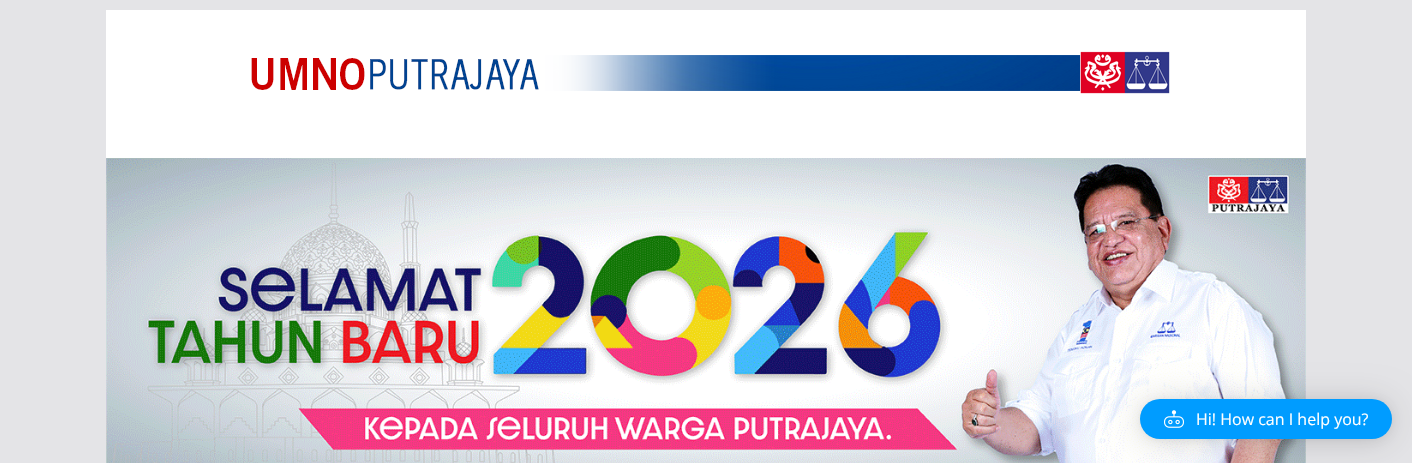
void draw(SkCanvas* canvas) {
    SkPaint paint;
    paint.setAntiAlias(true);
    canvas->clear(0xFFE4E4E7);
    paint.setColor(0xFFFFFFFF);
    canvas->drawRect(SkRect::MakeXYWH(106, 10, 1200, 148), paint);
    canvas->drawImageRect(SkImages::DeferredFromEncodedData(SkData::MakeFromFileName("img1.png")), SkRect::MakeXYWH(251, 51, 919, 43), SkSamplingOptions());
    canvas->drawImageRect(SkImages::DeferredFromEncodedData(SkData::MakeFromFileName("img2.png")), SkRect::MakeXYWH(106, 158, 1200, 305), SkSamplingOptions());
    paint.setColor(0x29000000);
    paint.setMaskFilter(SkMaskFilter::MakeBlur(kNormal_SkBlurStyle, 16));
    canvas->drawRoundRect(SkRect::MakeXYWH(1140, 401, 252, 40), 20, 20, paint);
    paint.setMaskFilter(nullptr);
    paint.setColor(0x0F000000);
    paint.setMaskFilter(SkMaskFilter::MakeBlur(kNormal_SkBlurStyle, 3));
    canvas->drawRoundRect(SkRect::MakeXYWH(1140, 400, 252, 40), 20, 20, paint);
    paint.setMaskFilter(nullptr);
    paint.setColor(0xFF009CFF);
    canvas->drawRoundRect(SkRect::MakeXYWH(1140, 399, 252, 40), 20, 20, paint);
    canvas->drawImageRect(SkImages::DeferredFromEncodedData(SkData::MakeFromFileName("img3.png")), SkRect::MakeXYWH(1164, 410, 20, 18), SkSamplingOptions());
    SkFont font1(fontMgr->matchFamilyStyle("Open Sans", SkFontStyle::Normal()), 16);
    font1.setSubpixel(true);
    paint.setColor(0xFFFFFFFF);
    canvas->drawString("Hi! How can I help you?", 1196, 425, font1, paint);
}
